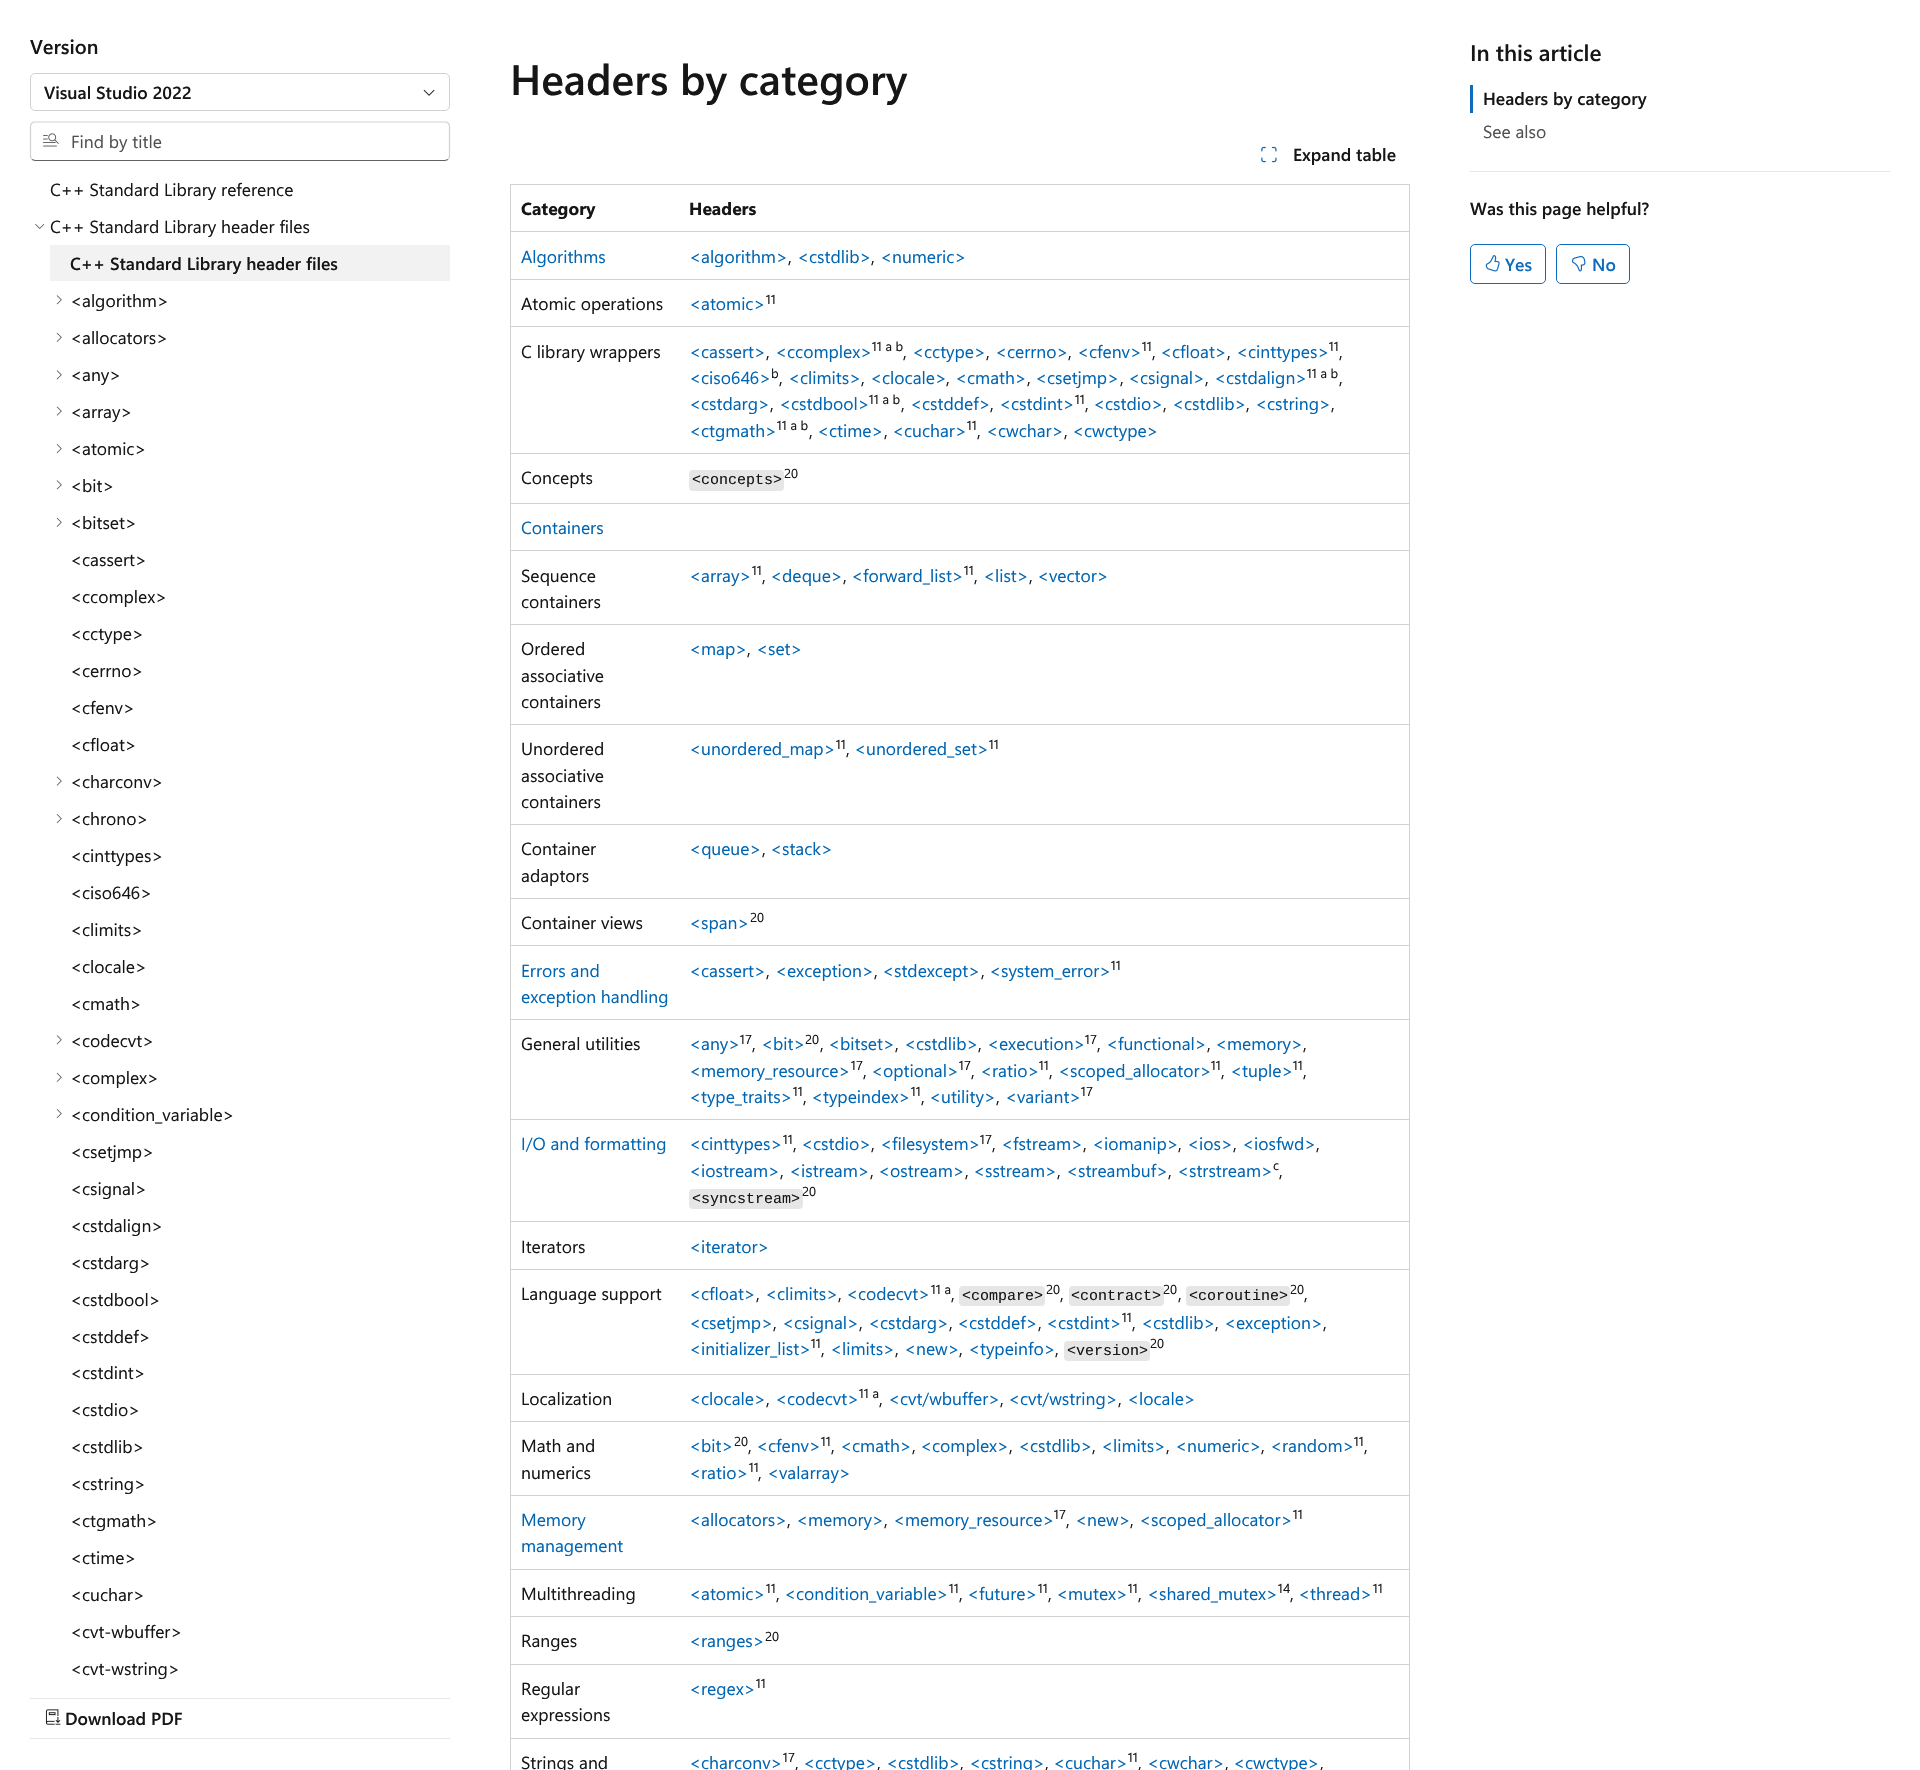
void draw(SkCanvas* canvas) {
    SkPaint paint;
    paint.setAntiAlias(true);
    canvas->clear(0xFFFFFFFF);
    SkFont font1(fontMgr->matchFamilyStyle("Segoe UI", SkFontStyle(600, SkFontStyle::kNormal_Width, SkFontStyle::kUpright_Slant)), 20);
    font1.setSubpixel(true);
    paint.setColor(0xFF161616);
    canvas->drawString("Version", 30, 54, font1, paint);
    paint.setStyle(SkPaint::kStroke_Style);
    paint.setStrokeWidth(1);
    paint.setColor(0xFFD1D1D1);
    canvas->drawRoundRect(SkRect::MakeXYWH(30.5f, 73.5f, 419, 37), 4.5f, 4.5f, paint);
    SkFont font2(fontMgr->matchFamilyStyle("Segoe UI", SkFontStyle(600, SkFontStyle::kNormal_Width, SkFontStyle::kUpright_Slant)), 17.5f);
    font2.setSubpixel(true);
    paint.setStyle(SkPaint::kFill_Style);
    paint.setColor(0xFF161616);
    canvas->drawString("Visual Studio 2022", 44, 99, font2, paint);
    canvas->drawImageRect(SkImages::DeferredFromEncodedData(SkData::MakeFromFileName("img1.png")), SkRect::MakeXYWH(423, 89, 12, 7), SkSamplingOptions());
    paint.setStyle(SkPaint::kStroke_Style);
    paint.setStrokeWidth(1.2f);
    paint.setColor(0xFF616161);
    canvas->drawPath(SkPathBuilder().moveTo(448, 159.5f).lineTo(445, 160.5f).lineTo(35, 160.5f).lineTo(32, 159.5f).detach(), paint);
    paint.setColor(0xFFD1D1D1);
    canvas->drawPath(SkPathBuilder().moveTo(32, 159.5f).cubicTo(31, 158.5f, 30.5f, 157.5f, 30.5f, 156).lineTo(30.5f, 126).cubicTo(30.5f, 125, 31, 124, 32, 123).cubicTo(32.5f, 122.5f, 34, 122, 35, 122).lineTo(445, 122).cubicTo(446, 122, 447.5f, 122.5f, 448, 123).cubicTo(449, 124, 449.5f, 125, 449.5f, 126).lineTo(449.5f, 156).cubicTo(449.5f, 157.5f, 449, 158.5f, 448, 159.5f).detach(), paint);
    canvas->drawImageRect(SkImages::DeferredFromEncodedData(SkData::MakeFromFileName("img2.png")), SkRect::MakeXYWH(43, 133, 16, 14), SkSamplingOptions());
    SkFont font3(fontMgr->matchFamilyStyle("Segoe UI", SkFontStyle::Normal()), 17.5f);
    font3.setSubpixel(true);
    paint.setStyle(SkPaint::kFill_Style);
    paint.setColor(0xFF505050);
    canvas->drawString("Find by title", 71, 148, font3, paint);
    paint.setColor(0xFF161616);
    canvas->drawString("C++ Standard Library reference", 50, 196, font3, paint);
    canvas->drawImageRect(SkImages::DeferredFromEncodedData(SkData::MakeFromFileName("img3.png")), SkRect::MakeXYWH(35, 224, 10, 5), SkSamplingOptions());
    canvas->drawString("C++ Standard Library header files", 50, 233, font3, paint);
    paint.setColor(0xFFF2F2F2);
    canvas->drawRect(SkRect::MakeXYWH(50, 245, 400, 36), paint);
    paint.setColor(0xFF161616);
    canvas->drawString("C++ Standard Library header files", 70, 270, font2, paint);
    canvas->drawImageRect(SkImages::DeferredFromEncodedData(SkData::MakeFromFileName("img4.png")), SkRect::MakeXYWH(56, 295, 6, 10), SkSamplingOptions());
    canvas->drawString("<algorithm>", 70, 307, font3, paint);
    canvas->drawImageRect(SkImages::DeferredFromEncodedData(SkData::MakeFromFileName("img5.png")), SkRect::MakeXYWH(56, 332, 6, 10), SkSamplingOptions());
    canvas->drawString("<allocators>", 70, 344, font3, paint);
    canvas->drawImageRect(SkImages::DeferredFromEncodedData(SkData::MakeFromFileName("img4.png")), SkRect::MakeXYWH(56, 370, 6, 10), SkSamplingOptions());
    canvas->drawString("<any>", 70, 381, font3, paint);
    canvas->drawImageRect(SkImages::DeferredFromEncodedData(SkData::MakeFromFileName("img6.png")), SkRect::MakeXYWH(56, 406, 6, 10), SkSamplingOptions());
    canvas->drawString("<array>", 70, 418, font3, paint);
    canvas->drawImageRect(SkImages::DeferredFromEncodedData(SkData::MakeFromFileName("img7.png")), SkRect::MakeXYWH(56, 444, 6, 10), SkSamplingOptions());
    canvas->drawString("<atomic>", 70, 455, font3, paint);
    canvas->drawImageRect(SkImages::DeferredFromEncodedData(SkData::MakeFromFileName("img4.png")), SkRect::MakeXYWH(56, 480, 6, 10), SkSamplingOptions());
    canvas->drawString("<bit>", 70, 492, font3, paint);
    canvas->drawImageRect(SkImages::DeferredFromEncodedData(SkData::MakeFromFileName("img5.png")), SkRect::MakeXYWH(56, 517, 6, 10), SkSamplingOptions());
    canvas->drawString("<bitset>", 70, 529, font3, paint);
    canvas->drawString("<cassert>", 70, 566, font3, paint);
    canvas->drawString("<ccomplex>", 70, 603, font3, paint);
    canvas->drawString("<cctype>", 70, 640, font3, paint);
    canvas->drawString("<cerrno>", 70, 677, font3, paint);
    canvas->drawString("<cfenv>", 70, 714, font3, paint);
    canvas->drawString("<cfloat>", 70, 751, font3, paint);
    canvas->drawImageRect(SkImages::DeferredFromEncodedData(SkData::MakeFromFileName("img6.png")), SkRect::MakeXYWH(56, 776, 6, 10), SkSamplingOptions());
    canvas->drawString("<charconv>", 70, 788, font3, paint);
    canvas->drawImageRect(SkImages::DeferredFromEncodedData(SkData::MakeFromFileName("img7.png")), SkRect::MakeXYWH(56, 814, 6, 10), SkSamplingOptions());
    canvas->drawString("<chrono>", 70, 825, font3, paint);
    canvas->drawString("<cinttypes>", 70, 862, font3, paint);
    canvas->drawString("<ciso646>", 70, 899, font3, paint);
    canvas->drawString("<climits>", 70, 936, font3, paint);
    canvas->drawString("<clocale>", 70, 973, font3, paint);
    canvas->drawString("<cmath>", 70, 1010, font3, paint);
    canvas->drawImageRect(SkImages::DeferredFromEncodedData(SkData::MakeFromFileName("img4.png")), SkRect::MakeXYWH(56, 1035, 6, 10), SkSamplingOptions());
    canvas->drawString("<codecvt>", 70, 1047, font3, paint);
    canvas->drawImageRect(SkImages::DeferredFromEncodedData(SkData::MakeFromFileName("img5.png")), SkRect::MakeXYWH(56, 1072, 6, 10), SkSamplingOptions());
    canvas->drawString("<complex>", 70, 1084, font3, paint);
    canvas->drawImageRect(SkImages::DeferredFromEncodedData(SkData::MakeFromFileName("img7.png")), SkRect::MakeXYWH(56, 1109, 6, 10), SkSamplingOptions());
    canvas->drawString("<condition_variable>", 70, 1121, font3, paint);
    canvas->drawString("<csetjmp>", 70, 1158, font3, paint);
    canvas->drawString("<csignal>", 70, 1195, font3, paint);
    canvas->drawString("<cstdalign>", 70, 1232, font3, paint);
    canvas->drawString("<cstdarg>", 70, 1269, font3, paint);
    canvas->drawString("<cstdbool>", 70, 1306, font3, paint);
    canvas->drawString("<cstddef>", 70, 1343, font3, paint);
    canvas->drawString("<cstdint>", 70, 1379, font3, paint);
    canvas->drawString("<cstdio>", 70, 1416, font3, paint);
    canvas->drawString("<cstdlib>", 70, 1453, font3, paint);
    canvas->drawString("<cstring>", 70, 1490, font3, paint);
    canvas->drawString("<ctgmath>", 70, 1527, font3, paint);
    canvas->drawString("<ctime>", 70, 1564, font3, paint);
    canvas->drawString("<cuchar>", 70, 1601, font3, paint);
    canvas->drawString("<cvt-wbuffer>", 70, 1638, font3, paint);
    canvas->drawString("<cvt-wstring>", 70, 1675, font3, paint);
    paint.setColor(0xFFE6E6E6);
    canvas->drawRect(SkRect::MakeXYWH(30, 1698, 420, 1), paint);
    canvas->drawRect(SkRect::MakeXYWH(30, 1738, 420, 1), paint);
    canvas->drawImageRect(SkImages::DeferredFromEncodedData(SkData::MakeFromFileName("img8.png")), SkRect::MakeXYWH(45, 1709, 16, 16), SkSamplingOptions());
    paint.setColor(0xFF161616);
    canvas->drawString("Download PDF", 65, 1725, font2, paint);
    SkFont font4(fontMgr->matchFamilyStyle("Segoe UI", SkFontStyle(600, SkFontStyle::kNormal_Width, SkFontStyle::kUpright_Slant)), 42.5f);
    font4.setSubpixel(true);
    canvas->drawString("Headers by category", 510, 95, font4, paint);
    canvas->drawImageRect(SkImages::DeferredFromEncodedData(SkData::MakeFromFileName("img9.png")), SkRect::MakeXYWH(1261, 146, 16, 17), SkSamplingOptions());
    canvas->drawString("Expand table", 1293, 161, font2, paint);
    paint.setColor(0xFFD1D1D1);
    canvas->drawRect(SkRect::MakeXYWH(510, 184, 900, 1), paint);
    canvas->drawRect(SkRect::MakeXYWH(1409, 184, 1, 1586), paint);
    canvas->drawRect(SkRect::MakeXYWH(510, 184, 1, 1586), paint);
    SkFont font5(fontMgr->matchFamilyStyle("Segoe UI", SkFontStyle::Bold()), 17.5f);
    font5.setSubpixel(true);
    paint.setColor(0xFF161616);
    canvas->drawString("Category", 521, 215, font5, paint);
    canvas->drawString("Headers", 689, 215, font5, paint);
    paint.setColor(0xFF0065B3);
    canvas->drawString("Algorithms", 521, 263, font3, paint);
    paint.setColor(0xFFD1D1D1);
    canvas->drawRect(SkRect::MakeXYWH(510, 231, 900, 1), paint);
    paint.setColor(0xFF0065B3);
    canvas->drawString("<algorithm>", 689, 263, font3, paint);
    paint.setColor(0xFF161616);
    canvas->drawString(",", 788, 263, font3, paint);
    paint.setColor(0xFF0065B3);
    canvas->drawString("<cstdlib>", 797, 263, font3, paint);
    paint.setColor(0xFF161616);
    canvas->drawString(",", 871, 263, font3, paint);
    paint.setColor(0xFF0065B3);
    canvas->drawString("<numeric>", 880, 263, font3, paint);
    paint.setColor(0xFF161616);
    canvas->drawString("Atomic operations", 521, 310, font3, paint);
    paint.setColor(0xFFD1D1D1);
    canvas->drawRect(SkRect::MakeXYWH(510, 279, 900, 1), paint);
    paint.setColor(0xFF0065B3);
    canvas->drawString("<atomic>", 689, 310, font3, paint);
    SkFont font6(fontMgr->matchFamilyStyle("Segoe UI", SkFontStyle::Normal()), 13);
    font6.setSubpixel(true);
    paint.setColor(0xFF161616);
    canvas->drawString("11", 766, 304, font6, paint);
    canvas->drawString("C library wrappers", 521, 358, font3, paint);
    paint.setColor(0xFFD1D1D1);
    canvas->drawRect(SkRect::MakeXYWH(510, 326, 900, 1), paint);
    paint.setColor(0xFF0065B3);
    canvas->drawString("<cassert>", 689, 358, font3, paint);
    paint.setColor(0xFF161616);
    canvas->drawString(",", 766, 358, font3, paint);
    paint.setColor(0xFF0065B3);
    canvas->drawString("<ccomplex>", 775, 358, font3, paint);
    paint.setColor(0xFF161616);
    canvas->drawString("11 a b", 872, 351, font6, paint);
    canvas->drawString(",", 903, 358, font3, paint);
    paint.setColor(0xFF0065B3);
    canvas->drawString("<cctype>", 912, 358, font3, paint);
    paint.setColor(0xFF161616);
    canvas->drawString(",", 986, 358, font3, paint);
    paint.setColor(0xFF0065B3);
    canvas->drawString("<cerrno>", 995, 358, font3, paint);
    paint.setColor(0xFF161616);
    canvas->drawString(",", 1068, 358, font3, paint);
    paint.setColor(0xFF0065B3);
    canvas->drawString("<cfenv>", 1077, 358, font3, paint);
    paint.setColor(0xFF161616);
    canvas->drawString("11", 1142, 351, font6, paint);
    canvas->drawString(",", 1152, 358, font3, paint);
    paint.setColor(0xFF0065B3);
    canvas->drawString("<cfloat>", 1160, 358, font3, paint);
    paint.setColor(0xFF161616);
    canvas->drawString(",", 1227, 358, font3, paint);
    paint.setColor(0xFF0065B3);
    canvas->drawString("<cinttypes>", 1236, 358, font3, paint);
    paint.setColor(0xFF161616);
    canvas->drawString("11", 1329, 351, font6, paint);
    canvas->drawString(",", 1339, 358, font3, paint);
    paint.setColor(0xFF0065B3);
    canvas->drawString("<ciso646>", 689, 384, font3, paint);
    paint.setColor(0xFF161616);
    canvas->drawString("b", 771, 378, font6, paint);
    canvas->drawString(",", 779, 384, font3, paint);
    paint.setColor(0xFF0065B3);
    canvas->drawString("<climits>", 788, 384, font3, paint);
    paint.setColor(0xFF161616);
    canvas->drawString(",", 861, 384, font3, paint);
    paint.setColor(0xFF0065B3);
    canvas->drawString("<clocale>", 870, 384, font3, paint);
    paint.setColor(0xFF161616);
    canvas->drawString(",", 946, 384, font3, paint);
    paint.setColor(0xFF0065B3);
    canvas->drawString("<cmath>", 955, 384, font3, paint);
    paint.setColor(0xFF161616);
    canvas->drawString(",", 1027, 384, font3, paint);
    paint.setColor(0xFF0065B3);
    canvas->drawString("<csetjmp>", 1035, 384, font3, paint);
    paint.setColor(0xFF161616);
    canvas->drawString(",", 1120, 384, font3, paint);
    paint.setColor(0xFF0065B3);
    canvas->drawString("<csignal>", 1128, 384, font3, paint);
    paint.setColor(0xFF161616);
    canvas->drawString(",", 1205, 384, font3, paint);
    paint.setColor(0xFF0065B3);
    canvas->drawString("<cstdalign>", 1214, 384, font3, paint);
    paint.setColor(0xFF161616);
    canvas->drawString("11 a b", 1307, 378, font6, paint);
    canvas->drawString(",", 1339, 384, font3, paint);
    paint.setColor(0xFF0065B3);
    canvas->drawString("<cstdarg>", 689, 410, font3, paint);
    paint.setColor(0xFF161616);
    canvas->drawString(",", 770, 410, font3, paint);
    paint.setColor(0xFF0065B3);
    canvas->drawString("<cstdbool>", 779, 410, font3, paint);
    paint.setColor(0xFF161616);
    canvas->drawString("11 a b", 869, 404, font6, paint);
    canvas->drawString(",", 901, 410, font3, paint);
    paint.setColor(0xFF0065B3);
    canvas->drawString("<cstddef>", 910, 410, font3, paint);
    paint.setColor(0xFF161616);
    canvas->drawString(",", 990, 410, font3, paint);
    paint.setColor(0xFF0065B3);
    canvas->drawString("<cstdint>", 999, 410, font3, paint);
    paint.setColor(0xFF161616);
    canvas->drawString("11", 1075, 404, font6, paint);
    canvas->drawString(",", 1085, 410, font3, paint);
    paint.setColor(0xFF0065B3);
    canvas->drawString("<cstdio>", 1093, 410, font3, paint);
    paint.setColor(0xFF161616);
    canvas->drawString(",", 1163, 410, font3, paint);
    paint.setColor(0xFF0065B3);
    canvas->drawString("<cstdlib>", 1172, 410, font3, paint);
    paint.setColor(0xFF161616);
    canvas->drawString(",", 1246, 410, font3, paint);
    paint.setColor(0xFF0065B3);
    canvas->drawString("<cstring>", 1255, 410, font3, paint);
    paint.setColor(0xFF161616);
    canvas->drawString(",", 1331, 410, font3, paint);
    paint.setColor(0xFF0065B3);
    canvas->drawString("<ctgmath>", 689, 437, font3, paint);
    paint.setColor(0xFF161616);
    canvas->drawString("11 a b", 777, 430, font6, paint);
    canvas->drawString(",", 809, 437, font3, paint);
    paint.setColor(0xFF0065B3);
    canvas->drawString("<ctime>", 817, 437, font3, paint);
    paint.setColor(0xFF161616);
    canvas->drawString(",", 884, 437, font3, paint);
    paint.setColor(0xFF0065B3);
    canvas->drawString("<cuchar>", 892, 437, font3, paint);
    paint.setColor(0xFF161616);
    canvas->drawString("11", 967, 430, font6, paint);
    canvas->drawString(",", 977, 437, font3, paint);
    paint.setColor(0xFF0065B3);
    canvas->drawString("<cwchar>", 986, 437, font3, paint);
    paint.setColor(0xFF161616);
    canvas->drawString(",", 1064, 437, font3, paint);
    paint.setColor(0xFF0065B3);
    canvas->drawString("<cwctype>", 1072, 437, font3, paint);
    paint.setColor(0xFF161616);
    canvas->drawString("Concepts", 521, 484, font3, paint);
    paint.setColor(0xFFD1D1D1);
    canvas->drawRect(SkRect::MakeXYWH(510, 453, 900, 1), paint);
    paint.setColor(0xFFE6E6E6);
    canvas->drawRoundRect(SkRect::MakeXYWH(689, 470, 95, 21), 4, 4, paint);
    SkFont font7(fontMgr->matchFamilyStyle("Liberation Mono", SkFontStyle::Normal()), 15);
    font7.setSubpixel(true);
    paint.setColor(0xFF161616);
    canvas->drawString("<concepts>", 692, 484, font7, paint);
    canvas->drawString("20", 784, 478, font6, paint);
    paint.setColor(0xFFD1D1D1);
    canvas->drawRect(SkRect::MakeXYWH(510, 503, 900, 1), paint);
    paint.setColor(0xFF0065B3);
    canvas->drawString("Containers", 521, 534, font3, paint);
    paint.setColor(0xFF161616);
    canvas->drawString("Sequence", 521, 582, font3, paint);
    canvas->drawString("containers", 521, 608, font3, paint);
    paint.setColor(0xFFD1D1D1);
    canvas->drawRect(SkRect::MakeXYWH(510, 550, 900, 1), paint);
    paint.setColor(0xFF0065B3);
    canvas->drawString("<array>", 689, 582, font3, paint);
    paint.setColor(0xFF161616);
    canvas->drawString("11", 752, 575, font6, paint);
    canvas->drawString(",", 762, 582, font3, paint);
    paint.setColor(0xFF0065B3);
    canvas->drawString("<deque>", 770, 582, font3, paint);
    paint.setColor(0xFF161616);
    canvas->drawString(",", 843, 582, font3, paint);
    paint.setColor(0xFF0065B3);
    canvas->drawString("<forward_list>", 851, 582, font3, paint);
    paint.setColor(0xFF161616);
    canvas->drawString("11", 964, 575, font6, paint);
    canvas->drawString(",", 974, 582, font3, paint);
    paint.setColor(0xFF0065B3);
    canvas->drawString("<list>", 983, 582, font3, paint);
    paint.setColor(0xFF161616);
    canvas->drawString(",", 1029, 582, font3, paint);
    paint.setColor(0xFF0065B3);
    canvas->drawString("<vector>", 1037, 582, font3, paint);
    paint.setColor(0xFF161616);
    canvas->drawString("Ordered", 521, 655, font3, paint);
    canvas->drawString("associative", 521, 682, font3, paint);
    canvas->drawString("containers", 521, 708, font3, paint);
    paint.setColor(0xFFD1D1D1);
    canvas->drawRect(SkRect::MakeXYWH(510, 624, 900, 1), paint);
    paint.setColor(0xFF0065B3);
    canvas->drawString("<map>", 689, 655, font3, paint);
    paint.setColor(0xFF161616);
    canvas->drawString(",", 747, 655, font3, paint);
    paint.setColor(0xFF0065B3);
    canvas->drawString("<set>", 756, 655, font3, paint);
    paint.setColor(0xFF161616);
    canvas->drawString("Unordered", 521, 755, font3, paint);
    canvas->drawString("associative", 521, 782, font3, paint);
    canvas->drawString("containers", 521, 808, font3, paint);
    paint.setColor(0xFFD1D1D1);
    canvas->drawRect(SkRect::MakeXYWH(510, 724, 900, 1), paint);
    paint.setColor(0xFF0065B3);
    canvas->drawString("<unordered_map>", 689, 755, font3, paint);
    paint.setColor(0xFF161616);
    canvas->drawString("11", 836, 749, font6, paint);
    canvas->drawString(",", 846, 755, font3, paint);
    paint.setColor(0xFF0065B3);
    canvas->drawString("<unordered_set>", 854, 755, font3, paint);
    paint.setColor(0xFF161616);
    canvas->drawString("11", 989, 749, font6, paint);
    canvas->drawString("Container", 521, 855, font3, paint);
    canvas->drawString("adaptors", 521, 882, font3, paint);
    paint.setColor(0xFFD1D1D1);
    canvas->drawRect(SkRect::MakeXYWH(510, 824, 900, 1), paint);
    paint.setColor(0xFF0065B3);
    canvas->drawString("<queue>", 689, 855, font3, paint);
    paint.setColor(0xFF161616);
    canvas->drawString(",", 762, 855, font3, paint);
    paint.setColor(0xFF0065B3);
    canvas->drawString("<stack>", 770, 855, font3, paint);
    paint.setColor(0xFF161616);
    canvas->drawString("Container views", 521, 929, font3, paint);
    paint.setColor(0xFFD1D1D1);
    canvas->drawRect(SkRect::MakeXYWH(510, 898, 900, 1), paint);
    paint.setColor(0xFF161616);
    canvas->drawString("20", 750, 922, font6, paint);
    paint.setColor(0xFF0065B3);
    canvas->drawString("<span>", 689, 929, font3, paint);
    canvas->drawString("Errors and", 521, 977, font3, paint);
    canvas->drawString("exception handling", 521, 1003, font3, paint);
    paint.setColor(0xFFD1D1D1);
    canvas->drawRect(SkRect::MakeXYWH(510, 945, 900, 1), paint);
    paint.setColor(0xFF0065B3);
    canvas->drawString("<cassert>", 689, 977, font3, paint);
    paint.setColor(0xFF161616);
    canvas->drawString(",", 766, 977, font3, paint);
    paint.setColor(0xFF0065B3);
    canvas->drawString("<exception>", 775, 977, font3, paint);
    paint.setColor(0xFF161616);
    canvas->drawString(",", 874, 977, font3, paint);
    paint.setColor(0xFF0065B3);
    canvas->drawString("<stdexcept>", 882, 977, font3, paint);
    paint.setColor(0xFF161616);
    canvas->drawString(",", 981, 977, font3, paint);
    paint.setColor(0xFF0065B3);
    canvas->drawString("<system_error>", 989, 977, font3, paint);
    paint.setColor(0xFF161616);
    canvas->drawString("11", 1111, 970, font6, paint);
    canvas->drawString("General utilities", 521, 1050, font3, paint);
    paint.setColor(0xFFD1D1D1);
    canvas->drawRect(SkRect::MakeXYWH(510, 1019, 900, 1), paint);
    paint.setColor(0xFF0065B3);
    canvas->drawString("<any>", 689, 1050, font3, paint);
    paint.setColor(0xFF161616);
    canvas->drawString("17", 740, 1044, font6, paint);
    canvas->drawString(",", 752, 1050, font3, paint);
    paint.setColor(0xFF0065B3);
    canvas->drawString("<bit>", 761, 1050, font3, paint);
    paint.setColor(0xFF161616);
    canvas->drawString("20", 805, 1044, font6, paint);
    canvas->drawString(",", 820, 1050, font3, paint);
    paint.setColor(0xFF0065B3);
    canvas->drawString("<bitset>", 828, 1050, font3, paint);
    paint.setColor(0xFF161616);
    canvas->drawString(",", 895, 1050, font3, paint);
    paint.setColor(0xFF0065B3);
    canvas->drawString("<cstdlib>", 904, 1050, font3, paint);
    paint.setColor(0xFF161616);
    canvas->drawString(",", 978, 1050, font3, paint);
    paint.setColor(0xFF0065B3);
    canvas->drawString("<execution>", 987, 1050, font3, paint);
    paint.setColor(0xFF161616);
    canvas->drawString("17", 1085, 1044, font6, paint);
    canvas->drawString(",", 1097, 1050, font3, paint);
    paint.setColor(0xFF0065B3);
    canvas->drawString("<functional>", 1106, 1050, font3, paint);
    paint.setColor(0xFF161616);
    canvas->drawString(",", 1207, 1050, font3, paint);
    paint.setColor(0xFF0065B3);
    canvas->drawString("<memory>", 1215, 1050, font3, paint);
    paint.setColor(0xFF161616);
    canvas->drawString(",", 1303, 1050, font3, paint);
    paint.setColor(0xFF0065B3);
    canvas->drawString("<memory_resource>", 689, 1077, font3, paint);
    paint.setColor(0xFF161616);
    canvas->drawString("17", 851, 1070, font6, paint);
    canvas->drawString(",", 863, 1077, font3, paint);
    paint.setColor(0xFF0065B3);
    canvas->drawString("<optional>", 871, 1077, font3, paint);
    paint.setColor(0xFF161616);
    canvas->drawString("17", 959, 1070, font6, paint);
    canvas->drawString(",", 971, 1077, font3, paint);
    paint.setColor(0xFF0065B3);
    canvas->drawString("<ratio>", 980, 1077, font3, paint);
    paint.setColor(0xFF161616);
    canvas->drawString("11", 1039, 1070, font6, paint);
    canvas->drawString(",", 1049, 1077, font3, paint);
    paint.setColor(0xFF0065B3);
    canvas->drawString("<scoped_allocator>", 1058, 1077, font3, paint);
    paint.setColor(0xFF161616);
    canvas->drawString("11", 1211, 1070, font6, paint);
    canvas->drawString(",", 1221, 1077, font3, paint);
    paint.setColor(0xFF0065B3);
    canvas->drawString("<tuple>", 1230, 1077, font3, paint);
    paint.setColor(0xFF161616);
    canvas->drawString("11", 1293, 1070, font6, paint);
    canvas->drawString(",", 1303, 1077, font3, paint);
    paint.setColor(0xFF0065B3);
    canvas->drawString("<type_traits>", 689, 1103, font3, paint);
    paint.setColor(0xFF161616);
    canvas->drawString("11", 793, 1096, font6, paint);
    canvas->drawString(",", 803, 1103, font3, paint);
    paint.setColor(0xFF0065B3);
    canvas->drawString("<typeindex>", 811, 1103, font3, paint);
    paint.setColor(0xFF161616);
    canvas->drawString("11", 911, 1096, font6, paint);
    canvas->drawString(",", 921, 1103, font3, paint);
    paint.setColor(0xFF0065B3);
    canvas->drawString("<utility>", 929, 1103, font3, paint);
    paint.setColor(0xFF161616);
    canvas->drawString(",", 996, 1103, font3, paint);
    paint.setColor(0xFF0065B3);
    canvas->drawString("<variant>", 1005, 1103, font3, paint);
    paint.setColor(0xFF161616);
    canvas->drawString("17", 1081, 1096, font6, paint);
    paint.setColor(0xFF0065B3);
    canvas->drawString("I/O and formatting", 521, 1150, font3, paint);
    paint.setColor(0xFFD1D1D1);
    canvas->drawRect(SkRect::MakeXYWH(510, 1119, 900, 1), paint);
    paint.setColor(0xFF0065B3);
    canvas->drawString("<cinttypes>", 689, 1150, font3, paint);
    paint.setColor(0xFF161616);
    canvas->drawString("11", 783, 1144, font6, paint);
    canvas->drawString(",", 793, 1150, font3, paint);
    paint.setColor(0xFF0065B3);
    canvas->drawString("<cstdio>", 801, 1150, font3, paint);
    paint.setColor(0xFF161616);
    canvas->drawString(",", 871, 1150, font3, paint);
    paint.setColor(0xFF0065B3);
    canvas->drawString("<filesystem>", 880, 1150, font3, paint);
    paint.setColor(0xFF161616);
    canvas->drawString("17", 980, 1144, font6, paint);
    canvas->drawString(",", 992, 1150, font3, paint);
    paint.setColor(0xFF0065B3);
    canvas->drawString("<fstream>", 1001, 1150, font3, paint);
    paint.setColor(0xFF161616);
    canvas->drawString(",", 1083, 1150, font3, paint);
    paint.setColor(0xFF0065B3);
    canvas->drawString("<iomanip>", 1092, 1150, font3, paint);
    paint.setColor(0xFF161616);
    canvas->drawString(",", 1178, 1150, font3, paint);
    paint.setColor(0xFF0065B3);
    canvas->drawString("<ios>", 1187, 1150, font3, paint);
    paint.setColor(0xFF161616);
    canvas->drawString(",", 1233, 1150, font3, paint);
    paint.setColor(0xFF0065B3);
    canvas->drawString("<iosfwd>", 1242, 1150, font3, paint);
    paint.setColor(0xFF161616);
    canvas->drawString(",", 1316, 1150, font3, paint);
    paint.setColor(0xFF0065B3);
    canvas->drawString("<iostream>", 689, 1177, font3, paint);
    paint.setColor(0xFF161616);
    canvas->drawString(",", 780, 1177, font3, paint);
    paint.setColor(0xFF0065B3);
    canvas->drawString("<istream>", 789, 1177, font3, paint);
    paint.setColor(0xFF161616);
    canvas->drawString(",", 870, 1177, font3, paint);
    paint.setColor(0xFF0065B3);
    canvas->drawString("<ostream>", 878, 1177, font3, paint);
    paint.setColor(0xFF161616);
    canvas->drawString(",", 965, 1177, font3, paint);
    paint.setColor(0xFF0065B3);
    canvas->drawString("<sstream>", 973, 1177, font3, paint);
    paint.setColor(0xFF161616);
    canvas->drawString(",", 1057, 1177, font3, paint);
    paint.setColor(0xFF0065B3);
    canvas->drawString("<streambuf>", 1066, 1177, font3, paint);
    paint.setColor(0xFF161616);
    canvas->drawString(",", 1168, 1177, font3, paint);
    paint.setColor(0xFF0065B3);
    canvas->drawString("<strstream>", 1177, 1177, font3, paint);
    paint.setColor(0xFF161616);
    canvas->drawString("c", 1273, 1170, font6, paint);
    canvas->drawString(",", 1279, 1177, font3, paint);
    paint.setColor(0xFFE6E6E6);
    canvas->drawRoundRect(SkRect::MakeXYWH(689, 1189, 114, 20), 4, 4, paint);
    paint.setColor(0xFF161616);
    canvas->drawString("20", 802, 1196, font6, paint);
    canvas->drawString("<syncstream>", 692, 1203, font7, paint);
    canvas->drawString("Iterators", 521, 1253, font3, paint);
    paint.setColor(0xFFD1D1D1);
    canvas->drawRect(SkRect::MakeXYWH(510, 1221, 900, 1), paint);
    paint.setColor(0xFF0065B3);
    canvas->drawString("<iterator>", 689, 1253, font3, paint);
    paint.setColor(0xFF161616);
    canvas->drawString("Language support", 521, 1300, font3, paint);
    paint.setColor(0xFFD1D1D1);
    canvas->drawRect(SkRect::MakeXYWH(510, 1269, 900, 1), paint);
    paint.setColor(0xFF0065B3);
    canvas->drawString("<cfloat>", 689, 1300, font3, paint);
    paint.setColor(0xFF161616);
    canvas->drawString(",", 756, 1300, font3, paint);
    paint.setColor(0xFF0065B3);
    canvas->drawString("<climits>", 765, 1300, font3, paint);
    paint.setColor(0xFF161616);
    canvas->drawString(",", 838, 1300, font3, paint);
    paint.setColor(0xFF0065B3);
    canvas->drawString("<codecvt>", 846, 1300, font3, paint);
    paint.setColor(0xFF161616);
    canvas->drawString("11 a", 931, 1294, font6, paint);
    canvas->drawString(",", 951, 1300, font3, paint);
    paint.setColor(0xFFE6E6E6);
    canvas->drawRoundRect(SkRect::MakeXYWH(959, 1286, 86, 20), 4, 4, paint);
    paint.setColor(0xFF161616);
    canvas->drawString("<compare>", 962, 1300, font7, paint);
    canvas->drawString("20", 1046, 1294, font6, paint);
    canvas->drawString(",", 1060, 1300, font3, paint);
    paint.setColor(0xFFE6E6E6);
    canvas->drawRoundRect(SkRect::MakeXYWH(1069, 1286, 95, 20), 4, 4, paint);
    paint.setColor(0xFF161616);
    canvas->drawString("<contract>", 1071, 1300, font7, paint);
    canvas->drawString("20", 1163, 1294, font6, paint);
    canvas->drawString(",", 1178, 1300, font3, paint);
    paint.setColor(0xFFE6E6E6);
    canvas->drawRoundRect(SkRect::MakeXYWH(1186, 1286, 104, 20), 4, 4, paint);
    paint.setColor(0xFF161616);
    canvas->drawString("<coroutine>", 1189, 1300, font7, paint);
    canvas->drawString("20", 1290, 1294, font6, paint);
    canvas->drawString(",", 1304, 1300, font3, paint);
    paint.setColor(0xFF0065B3);
    canvas->drawString("<csetjmp>", 689, 1329, font3, paint);
    paint.setColor(0xFF161616);
    canvas->drawString(",", 773, 1329, font3, paint);
    paint.setColor(0xFF0065B3);
    canvas->drawString("<csignal>", 782, 1329, font3, paint);
    paint.setColor(0xFF161616);
    canvas->drawString(",", 859, 1329, font3, paint);
    paint.setColor(0xFF0065B3);
    canvas->drawString("<cstdarg>", 868, 1329, font3, paint);
    paint.setColor(0xFF161616);
    canvas->drawString(",", 949, 1329, font3, paint);
    paint.setColor(0xFF0065B3);
    canvas->drawString("<cstddef>", 957, 1329, font3, paint);
    paint.setColor(0xFF161616);
    canvas->drawString(",", 1038, 1329, font3, paint);
    paint.setColor(0xFF0065B3);
    canvas->drawString("<cstdint>", 1046, 1329, font3, paint);
    paint.setColor(0xFF161616);
    canvas->drawString("11", 1122, 1322, font6, paint);
    canvas->drawString(",", 1132, 1329, font3, paint);
    paint.setColor(0xFF0065B3);
    canvas->drawString("<cstdlib>", 1141, 1329, font3, paint);
    paint.setColor(0xFF161616);
    canvas->drawString(",", 1215, 1329, font3, paint);
    paint.setColor(0xFF0065B3);
    canvas->drawString("<exception>", 1224, 1329, font3, paint);
    paint.setColor(0xFF161616);
    canvas->drawString(",", 1323, 1329, font3, paint);
    paint.setColor(0xFF0065B3);
    canvas->drawString("<initializer_list>", 689, 1355, font3, paint);
    paint.setColor(0xFF161616);
    canvas->drawString("11", 811, 1348, font6, paint);
    canvas->drawString(",", 821, 1355, font3, paint);
    paint.setColor(0xFF0065B3);
    canvas->drawString("<limits>", 830, 1355, font3, paint);
    paint.setColor(0xFF161616);
    canvas->drawString(",", 895, 1355, font3, paint);
    paint.setColor(0xFF0065B3);
    canvas->drawString("<new>", 904, 1355, font3, paint);
    paint.setColor(0xFF161616);
    canvas->drawString(",", 959, 1355, font3, paint);
    paint.setColor(0xFF0065B3);
    canvas->drawString("<typeinfo>", 968, 1355, font3, paint);
    paint.setColor(0xFF161616);
    canvas->drawString(",", 1055, 1355, font3, paint);
    paint.setColor(0xFFE6E6E6);
    canvas->drawRoundRect(SkRect::MakeXYWH(1064, 1341, 86, 20), 4, 4, paint);
    paint.setColor(0xFF161616);
    canvas->drawString("<version>", 1067, 1355, font7, paint);
    canvas->drawString("20", 1150, 1348, font6, paint);
    canvas->drawString("Localization", 521, 1405, font3, paint);
    paint.setColor(0xFFD1D1D1);
    canvas->drawRect(SkRect::MakeXYWH(510, 1374, 900, 1), paint);
    paint.setColor(0xFF0065B3);
    canvas->drawString("<clocale>", 689, 1405, font3, paint);
    paint.setColor(0xFF161616);
    canvas->drawString(",", 766, 1405, font3, paint);
    paint.setColor(0xFF0065B3);
    canvas->drawString("<codecvt>", 775, 1405, font3, paint);
    paint.setColor(0xFF161616);
    canvas->drawString("11 a", 859, 1398, font6, paint);
    canvas->drawString(",", 879, 1405, font3, paint);
    paint.setColor(0xFF0065B3);
    canvas->drawString("<cvt/wbuffer>", 888, 1405, font3, paint);
    paint.setColor(0xFF161616);
    canvas->drawString(",", 1000, 1405, font3, paint);
    paint.setColor(0xFF0065B3);
    canvas->drawString("<cvt/wstring>", 1008, 1405, font3, paint);
    paint.setColor(0xFF161616);
    canvas->drawString(",", 1118, 1405, font3, paint);
    paint.setColor(0xFF0065B3);
    canvas->drawString("<locale>", 1127, 1405, font3, paint);
    paint.setColor(0xFF161616);
    canvas->drawString("Math and", 521, 1452, font3, paint);
    canvas->drawString("numerics", 521, 1479, font3, paint);
    paint.setColor(0xFFD1D1D1);
    canvas->drawRect(SkRect::MakeXYWH(510, 1421, 900, 1), paint);
    paint.setColor(0xFF0065B3);
    canvas->drawString("<bit>", 689, 1452, font3, paint);
    paint.setColor(0xFF161616);
    canvas->drawString("20", 734, 1446, font6, paint);
    canvas->drawString(",", 748, 1452, font3, paint);
    paint.setColor(0xFF0065B3);
    canvas->drawString("<cfenv>", 756, 1452, font3, paint);
    paint.setColor(0xFF161616);
    canvas->drawString("11", 821, 1446, font6, paint);
    canvas->drawString(",", 831, 1452, font3, paint);
    paint.setColor(0xFF0065B3);
    canvas->drawString("<cmath>", 840, 1452, font3, paint);
    paint.setColor(0xFF161616);
    canvas->drawString(",", 912, 1452, font3, paint);
    paint.setColor(0xFF0065B3);
    canvas->drawString("<complex>", 920, 1452, font3, paint);
    paint.setColor(0xFF161616);
    canvas->drawString(",", 1009, 1452, font3, paint);
    paint.setColor(0xFF0065B3);
    canvas->drawString("<cstdlib>", 1018, 1452, font3, paint);
    paint.setColor(0xFF161616);
    canvas->drawString(",", 1092, 1452, font3, paint);
    paint.setColor(0xFF0065B3);
    canvas->drawString("<limits>", 1101, 1452, font3, paint);
    paint.setColor(0xFF161616);
    canvas->drawString(",", 1166, 1452, font3, paint);
    paint.setColor(0xFF0065B3);
    canvas->drawString("<numeric>", 1175, 1452, font3, paint);
    paint.setColor(0xFF161616);
    canvas->drawString(",", 1261, 1452, font3, paint);
    paint.setColor(0xFF0065B3);
    canvas->drawString("<random>", 1270, 1452, font3, paint);
    paint.setColor(0xFF161616);
    canvas->drawString("11", 1354, 1446, font6, paint);
    canvas->drawString(",", 1364, 1452, font3, paint);
    paint.setColor(0xFF0065B3);
    canvas->drawString("<ratio>", 689, 1479, font3, paint);
    paint.setColor(0xFF161616);
    canvas->drawString("11", 749, 1472, font6, paint);
    canvas->drawString(",", 758, 1479, font3, paint);
    paint.setColor(0xFF0065B3);
    canvas->drawString("<valarray>", 767, 1479, font3, paint);
    canvas->drawString("Memory", 521, 1526, font3, paint);
    canvas->drawString("management", 521, 1552, font3, paint);
    paint.setColor(0xFFD1D1D1);
    canvas->drawRect(SkRect::MakeXYWH(510, 1495, 900, 1), paint);
    paint.setColor(0xFF0065B3);
    canvas->drawString("<allocators>", 689, 1526, font3, paint);
    paint.setColor(0xFF161616);
    canvas->drawString(",", 787, 1526, font3, paint);
    paint.setColor(0xFF0065B3);
    canvas->drawString("<memory>", 796, 1526, font3, paint);
    paint.setColor(0xFF161616);
    canvas->drawString(",", 884, 1526, font3, paint);
    paint.setColor(0xFF0065B3);
    canvas->drawString("<memory_resource>", 893, 1526, font3, paint);
    paint.setColor(0xFF161616);
    canvas->drawString("17", 1054, 1519, font6, paint);
    canvas->drawString(",", 1066, 1526, font3, paint);
    paint.setColor(0xFF0065B3);
    canvas->drawString("<new>", 1075, 1526, font3, paint);
    paint.setColor(0xFF161616);
    canvas->drawString(",", 1130, 1526, font3, paint);
    paint.setColor(0xFF0065B3);
    canvas->drawString("<scoped_allocator>", 1139, 1526, font3, paint);
    paint.setColor(0xFF161616);
    canvas->drawString("11", 1293, 1519, font6, paint);
    canvas->drawString("Multithreading", 521, 1600, font3, paint);
    paint.setColor(0xFFD1D1D1);
    canvas->drawRect(SkRect::MakeXYWH(510, 1569, 900, 1), paint);
    paint.setColor(0xFF0065B3);
    canvas->drawString("<atomic>", 689, 1600, font3, paint);
    paint.setColor(0xFF161616);
    canvas->drawString("11", 766, 1593, font6, paint);
    canvas->drawString(",", 776, 1600, font3, paint);
    paint.setColor(0xFF0065B3);
    canvas->drawString("<condition_variable>", 784, 1600, font3, paint);
    paint.setColor(0xFF161616);
    canvas->drawString("11", 949, 1593, font6, paint);
    canvas->drawString(",", 959, 1600, font3, paint);
    paint.setColor(0xFF0065B3);
    canvas->drawString("<future>", 967, 1600, font3, paint);
    paint.setColor(0xFF161616);
    canvas->drawString("11", 1038, 1593, font6, paint);
    canvas->drawString(",", 1048, 1600, font3, paint);
    paint.setColor(0xFF0065B3);
    canvas->drawString("<mutex>", 1056, 1600, font3, paint);
    paint.setColor(0xFF161616);
    canvas->drawString("11", 1128, 1593, font6, paint);
    canvas->drawString(",", 1138, 1600, font3, paint);
    paint.setColor(0xFF0065B3);
    canvas->drawString("<shared_mutex>", 1147, 1600, font3, paint);
    paint.setColor(0xFF161616);
    canvas->drawString("14", 1278, 1593, font6, paint);
    canvas->drawString(",", 1290, 1600, font3, paint);
    paint.setColor(0xFF0065B3);
    canvas->drawString("<thread>", 1298, 1600, font3, paint);
    paint.setColor(0xFF161616);
    canvas->drawString("11", 1373, 1593, font6, paint);
    canvas->drawString("Ranges", 521, 1647, font3, paint);
    paint.setColor(0xFFD1D1D1);
    canvas->drawRect(SkRect::MakeXYWH(510, 1616, 900, 1), paint);
    paint.setColor(0xFF0065B3);
    canvas->drawString("<ranges>", 689, 1647, font3, paint);
    paint.setColor(0xFF161616);
    canvas->drawString("20", 765, 1641, font6, paint);
    canvas->drawString("Regular", 521, 1695, font3, paint);
    canvas->drawString("expressions", 521, 1721, font3, paint);
    paint.setColor(0xFFD1D1D1);
    canvas->drawRect(SkRect::MakeXYWH(510, 1664, 900, 1), paint);
    paint.setColor(0xFF161616);
    canvas->drawString("11", 756, 1688, font6, paint);
    paint.setColor(0xFF0065B3);
    canvas->drawString("<regex>", 689, 1695, font3, paint);
    paint.setColor(0xFF161616);
    canvas->drawString("Strings and", 521, 1769, font3, paint);
    paint.setColor(0xFFD1D1D1);
    canvas->drawRect(SkRect::MakeXYWH(510, 1738, 900, 1), paint);
    paint.setColor(0xFF0065B3);
    canvas->drawString("<charconv>", 689, 1769, font3, paint);
    paint.setColor(0xFF161616);
    canvas->drawString("17", 783, 1762, font6, paint);
    canvas->drawString(",", 795, 1769, font3, paint);
    paint.setColor(0xFF0065B3);
    canvas->drawString("<cctype>", 803, 1769, font3, paint);
    paint.setColor(0xFF161616);
    canvas->drawString(",", 877, 1769, font3, paint);
    paint.setColor(0xFF0065B3);
    canvas->drawString("<cstdlib>", 886, 1769, font3, paint);
    paint.setColor(0xFF161616);
    canvas->drawString(",", 960, 1769, font3, paint);
    paint.setColor(0xFF0065B3);
    canvas->drawString("<cstring>", 969, 1769, font3, paint);
    paint.setColor(0xFF161616);
    canvas->drawString(",", 1045, 1769, font3, paint);
    paint.setColor(0xFF0065B3);
    canvas->drawString("<cuchar>", 1053, 1769, font3, paint);
    paint.setColor(0xFF161616);
    canvas->drawString("11", 1128, 1762, font6, paint);
    canvas->drawString(",", 1138, 1769, font3, paint);
    paint.setColor(0xFF0065B3);
    canvas->drawString("<cwchar>", 1147, 1769, font3, paint);
    paint.setColor(0xFF161616);
    canvas->drawString(",", 1225, 1769, font3, paint);
    paint.setColor(0xFF0065B3);
    canvas->drawString("<cwctype>", 1233, 1769, font3, paint);
    paint.setColor(0xFF161616);
    canvas->drawString(",", 1320, 1769, font3, paint);
    paint.setColor(0xFFE6E6E6);
    canvas->drawRect(SkRect::MakeXYWH(1470, 171, 420, 1), paint);
    SkFont font8(fontMgr->matchFamilyStyle("Segoe UI", SkFontStyle(600, SkFontStyle::kNormal_Width, SkFontStyle::kUpright_Slant)), 22.5f);
    font8.setSubpixel(true);
    paint.setColor(0xFF161616);
    canvas->drawString("In this article", 1470, 61, font8, paint);
    paint.setColor(0xFF0F6CBD);
    canvas->drawRect(SkRect::MakeXYWH(1470, 85, 3, 28), paint);
    paint.setColor(0xFF161616);
    canvas->drawString("Headers by category", 1483, 105, font2, paint);
    paint.setColor(0xFF505050);
    canvas->drawString("See also", 1483, 138, font3, paint);
    paint.setColor(0xFF161616);
    canvas->drawString("Was this page helpful?", 1470, 215, font2, paint);
    paint.setStyle(SkPaint::kStroke_Style);
    paint.setStrokeWidth(1);
    paint.setColor(0xFF0F6CBD);
    canvas->drawRoundRect(SkRect::MakeXYWH(1470.5f, 244.5f, 75, 39), 4.5f, 4.5f, paint);
    canvas->drawImageRect(SkImages::DeferredFromEncodedData(SkData::MakeFromFileName("img10.png")), SkRect::MakeXYWH(1485, 255, 15, 17), SkSamplingOptions());
    paint.setStyle(SkPaint::kFill_Style);
    canvas->drawString("Yes", 1505, 271, font2, paint);
    paint.setStyle(SkPaint::kStroke_Style);
    canvas->drawRoundRect(SkRect::MakeXYWH(1556.5f, 244.5f, 73, 39), 4.5f, 4.5f, paint);
    canvas->drawImageRect(SkImages::DeferredFromEncodedData(SkData::MakeFromFileName("img11.png")), SkRect::MakeXYWH(1571, 255, 15, 17), SkSamplingOptions());
    paint.setStyle(SkPaint::kFill_Style);
    canvas->drawString("No", 1592, 271, font2, paint);
}
